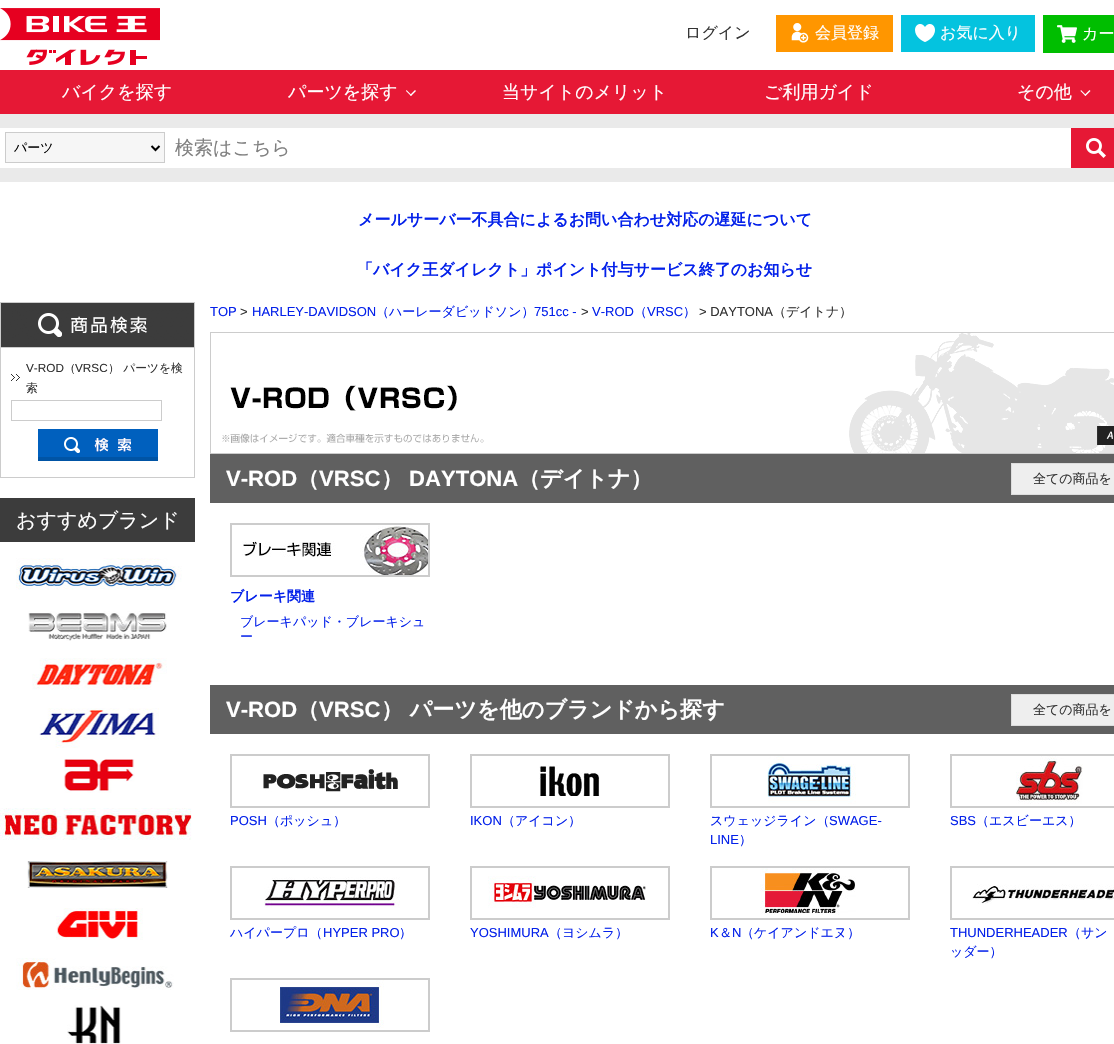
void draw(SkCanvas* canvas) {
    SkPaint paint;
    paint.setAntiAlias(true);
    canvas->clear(0xFFFFFFFF);
    canvas->drawImageRect(SkImages::DeferredFromEncodedData(SkData::MakeFromFileName("img1.png")), SkRect::MakeXYWH(0, 8, 160, 57), SkSamplingOptions());
    SkFont font1(fontMgr->matchFamilyStyle("WenQuanYi Zen Hei", SkFontStyle(500, SkFontStyle::kNormal_Width, SkFontStyle::kUpright_Slant)), 16);
    font1.setSubpixel(true);
    paint.setColor(0xFF333333);
    canvas->drawString("ログイン", 685, 38, font1, paint);
    paint.setColor(0xFFFF9600);
    canvas->drawRect(SkRect::MakeXYWH(776, 15, 117, 37), paint);
    canvas->drawImageRect(SkImages::DeferredFromEncodedData(SkData::MakeFromFileName("img2.png")), SkRect::MakeXYWH(791, 23, 18, 20), SkSamplingOptions());
    paint.setColor(0xFFFFFFFF);
    canvas->drawString("会員登録", 815, 38, font1, paint);
    paint.setColor(0xFF04C3DF);
    canvas->drawRect(SkRect::MakeXYWH(901, 15, 134, 37), paint);
    canvas->drawImageRect(SkImages::DeferredFromEncodedData(SkData::MakeFromFileName("img3.png")), SkRect::MakeXYWH(915, 24, 20, 18), SkSamplingOptions());
    paint.setColor(0xFFFFFFFF);
    canvas->drawString("お気に入り", 940, 38, font1, paint);
    paint.setColor(0xFF00BE00);
    canvas->drawRect(SkRect::MakeXYWH(1043, 15, 71, 38), paint);
    canvas->drawImageRect(SkImages::DeferredFromEncodedData(SkData::MakeFromFileName("img4.png")), SkRect::MakeXYWH(1057, 25, 20, 18), SkSamplingOptions());
    paint.setColor(0xFFFFFFFF);
    canvas->drawString("カー", 1082, 39, font1, paint);
    paint.setColor(0xFFE61835);
    canvas->drawRect(SkRect::MakeXYWH(0, 70, 1114, 44), paint);
    SkFont font2(fontMgr->matchFamilyStyle("WenQuanYi Zen Hei", SkFontStyle(500, SkFontStyle::kNormal_Width, SkFontStyle::kUpright_Slant)), 18);
    font2.setSubpixel(true);
    paint.setColor(0xFFFFFFFF);
    canvas->drawString("バイクを探す", 62, 98, font2, paint);
    canvas->drawString("パーツを探す", 288, 98, font2, paint);
    canvas->drawPath(SkPathBuilder().moveTo(415, 90).lineTo(416, 91).lineTo(411, 96).lineTo(410, 95).close().detach(), paint);
    canvas->drawPath(SkPathBuilder().moveTo(406.5f, 90).lineTo(411.5f, 95).lineTo(411, 96).lineTo(406, 91).close().detach(), paint);
    canvas->drawString("当サイトのメリット", 502, 98, font2, paint);
    canvas->drawString("ご利用ガイド", 764, 98, font2, paint);
    canvas->drawString("その他", 1017, 98, font2, paint);
    canvas->drawPath(SkPathBuilder().moveTo(1089.5f, 90).lineTo(1090.5f, 91).lineTo(1085.5f, 96).lineTo(1084.5f, 95).close().detach(), paint);
    canvas->drawPath(SkPathBuilder().moveTo(1081, 90).lineTo(1086, 95).lineTo(1085.5f, 96).lineTo(1080.5f, 91).close().detach(), paint);
    paint.setColor(0xFFEAEAEA);
    canvas->drawRect(SkRect::MakeXYWH(0, 114, 1114, 68), paint);
    paint.setColor(0xFFFFFFFF);
    canvas->drawRect(SkRect::MakeXYWH(0, 128, 1071, 40), paint);
    paint.setColor(0xFFF6F6F6);
    canvas->drawRect(SkRect::MakeXYWH(5.5f, 132.5f, 159, 30), paint);
    paint.setStyle(SkPaint::kStroke_Style);
    paint.setStrokeWidth(1);
    paint.setColor(0xFFCCCCCC);
    canvas->drawRect(SkRect::MakeXYWH(5.5f, 132.5f, 159, 30), paint);
    paint.setStrokeWidth(2);
    paint.setColor(0xFF000000);
    canvas->drawPath(SkPathBuilder().moveTo(151.5f, 146).lineTo(155.5f, 150).lineTo(159.5f, 146).detach(), paint);
    SkFont font3(fontMgr->matchFamilyStyle("WenQuanYi Zen Hei", SkFontStyle(500, SkFontStyle::kNormal_Width, SkFontStyle::kUpright_Slant)), 13);
    font3.setSubpixel(true);
    paint.setStyle(SkPaint::kFill_Style);
    canvas->drawString("パーツ", 14, 152, font3, paint);
    SkFont font4(fontMgr->matchFamilyStyle("WenQuanYi Zen Hei", SkFontStyle(500, SkFontStyle::kNormal_Width, SkFontStyle::kUpright_Slant)), 19);
    font4.setSubpixel(true);
    paint.setColor(0xFF808080);
    canvas->drawString("検索はこちら", 175, 154, font4, paint);
    paint.setColor(0xFFE61835);
    canvas->drawRect(SkRect::MakeXYWH(1071, 128, 43, 40), paint);
    canvas->drawImageRect(SkImages::DeferredFromEncodedData(SkData::MakeFromFileName("img5.png")), SkRect::MakeXYWH(1086, 138, 20, 20), SkSamplingOptions());
    SkFont font5(fontMgr->matchFamilyStyle("WenQuanYi Zen Hei", SkFontStyle::Bold()), 16);
    font5.setSubpixel(true);
    paint.setColor(0xFF0421EA);
    canvas->drawString("メールサーバー不具合によるお問い合わせ対応の遅延について", 358, 225, font5, paint);
    canvas->drawString("「バイク王ダイレクト」ポイント付与サービス終了のお知らせ", 357, 275, font5, paint);
    paint.setColor(0xFFCCCCCC);
    canvas->drawRect(SkRect::MakeXYWH(0, 302, 195, 1), paint);
    canvas->drawRect(SkRect::MakeXYWH(194, 302, 1, 45), paint);
    canvas->drawRect(SkRect::MakeXYWH(0, 302, 1, 45), paint);
    canvas->drawImageRect(SkImages::DeferredFromEncodedData(SkData::MakeFromFileName("img6.png")), SkRect::MakeXYWH(1, 303, 193, 44), SkSamplingOptions());
    paint.setStyle(SkPaint::kStroke_Style);
    paint.setStrokeWidth(1);
    canvas->drawRect(SkRect::MakeXYWH(0.5f, 347.5f, 194, 130), paint);
    canvas->drawImageRect(SkImages::DeferredFromEncodedData(SkData::MakeFromFileName("img7.png")), SkRect::MakeXYWH(11, 374, 9, 7), SkSamplingOptions());
    SkFont font6(fontMgr->matchFamilyStyle("Liberation Sans", SkFontStyle::Normal()), 11.75f);
    font6.setSubpixel(true);
    paint.setStyle(SkPaint::kFill_Style);
    paint.setColor(0xFF333333);
    canvas->drawString("V-ROD", 26, 372, font6, paint);
    SkFont font7(fontMgr->matchFamilyStyle("WenQuanYi Zen Hei", SkFontStyle(500, SkFontStyle::kNormal_Width, SkFontStyle::kUpright_Slant)), 11.75f);
    font7.setSubpixel(true);
    canvas->drawString("（", 64, 372, font7, paint);
    canvas->drawString("VRSC", 75, 372, font6, paint);
    canvas->drawString("） パーツを検", 108, 372, font7, paint);
    canvas->drawString("索", 26, 392, font7, paint);
    paint.setStyle(SkPaint::kStroke_Style);
    paint.setColor(0xFFCCCCCC);
    canvas->drawRect(SkRect::MakeXYWH(11.5f, 400.5f, 150, 20), paint);
    canvas->drawImageRect(SkImages::DeferredFromEncodedData(SkData::MakeFromFileName("img8.png")), SkRect::MakeXYWH(38, 429, 120, 32), SkSamplingOptions());
    paint.setStyle(SkPaint::kFill_Style);
    paint.setColor(0xFF3C3C3C);
    canvas->drawRect(SkRect::MakeXYWH(0, 498, 195, 44), paint);
    SkFont font8(fontMgr->matchFamilyStyle("WenQuanYi Zen Hei", SkFontStyle(500, SkFontStyle::kNormal_Width, SkFontStyle::kUpright_Slant)), 20);
    font8.setSubpixel(true);
    paint.setColor(0xFFFFFFFF);
    canvas->drawString("おすすめブランド", 16, 527, font8, paint);
    canvas->drawImageRect(SkImages::DeferredFromEncodedData(SkData::MakeFromFileName("img9.png")), SkRect::MakeXYWH(16, 558, 166, 32), SkSamplingOptions());
    canvas->drawImageRect(SkImages::DeferredFromEncodedData(SkData::MakeFromFileName("img10.png")), SkRect::MakeXYWH(28, 611, 139, 30), SkSamplingOptions());
    canvas->drawImageRect(SkImages::DeferredFromEncodedData(SkData::MakeFromFileName("img11.png")), SkRect::MakeXYWH(32, 658, 135, 32), SkSamplingOptions());
    canvas->drawImageRect(SkImages::DeferredFromEncodedData(SkData::MakeFromFileName("img12.png")), SkRect::MakeXYWH(39, 708, 120, 40), SkSamplingOptions());
    canvas->drawImageRect(SkImages::DeferredFromEncodedData(SkData::MakeFromFileName("img13.png")), SkRect::MakeXYWH(64, 759, 71, 34), SkSamplingOptions());
    canvas->drawImageRect(SkImages::DeferredFromEncodedData(SkData::MakeFromFileName("img14.png")), SkRect::MakeXYWH(0, 808, 192, 32), SkSamplingOptions());
    canvas->drawImageRect(SkImages::DeferredFromEncodedData(SkData::MakeFromFileName("img15.png")), SkRect::MakeXYWH(27, 861, 141, 27), SkSamplingOptions());
    canvas->drawImageRect(SkImages::DeferredFromEncodedData(SkData::MakeFromFileName("img16.png")), SkRect::MakeXYWH(56, 908, 87, 32), SkSamplingOptions());
    canvas->drawImageRect(SkImages::DeferredFromEncodedData(SkData::MakeFromFileName("img17.png")), SkRect::MakeXYWH(16, 958, 158, 32), SkSamplingOptions());
    canvas->drawImageRect(SkImages::DeferredFromEncodedData(SkData::MakeFromFileName("img18.png")), SkRect::MakeXYWH(67, 1005, 54, 39), SkSamplingOptions());
    SkFont font9(fontMgr->matchFamilyStyle("Liberation Sans", SkFontStyle::Normal()), 13);
    font9.setSubpixel(true);
    paint.setColor(0xFF0421EA);
    canvas->drawString("TOP", 210, 316, font9, paint);
    paint.setColor(0xFF333333);
    canvas->drawString(">", 240, 316, font9, paint);
    paint.setColor(0xFF0421EA);
    canvas->drawString("HARLEY-DAVIDSON", 252, 316, font9, paint);
    canvas->drawString("（ハーレーダビッドソン）", 376, 316, font3, paint);
    canvas->drawString("751cc -", 534, 316, font9, paint);
    paint.setColor(0xFF333333);
    canvas->drawString(">", 581, 316, font9, paint);
    paint.setColor(0xFF0421EA);
    canvas->drawString("V-ROD", 592, 316, font9, paint);
    canvas->drawString("（", 634, 316, font3, paint);
    canvas->drawString("VRSC", 647, 316, font9, paint);
    canvas->drawString("）", 683, 316, font3, paint);
    paint.setColor(0xFF333333);
    canvas->drawString("> DAYTONA", 699, 316, font9, paint);
    canvas->drawString("（デイトナ）", 773, 316, font3, paint);
    paint.setStyle(SkPaint::kStroke_Style);
    paint.setColor(0xFFCCCCCC);
    canvas->drawRect(SkRect::MakeXYWH(210.5f, 332.5f, 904, 121), paint);
    canvas->drawImageRect(SkImages::DeferredFromEncodedData(SkData::MakeFromFileName("img19.png")), SkRect::MakeXYWH(222, 333, 892, 120), SkSamplingOptions());
    paint.setStyle(SkPaint::kFill_Style);
    paint.setColor(0xFF606060);
    canvas->drawRect(SkRect::MakeXYWH(210, 454, 904, 49), paint);
    SkFont font10(fontMgr->matchFamilyStyle("Liberation Sans", SkFontStyle::Bold()), 22.1f);
    font10.setSubpixel(true);
    paint.setColor(0xFFFFFFFF);
    canvas->drawString("V-ROD", 226, 486, font10, paint);
    SkFont font11(fontMgr->matchFamilyStyle("WenQuanYi Zen Hei", SkFontStyle::Bold()), 22.1f);
    font11.setSubpixel(true);
    canvas->drawString("（", 297, 486, font11, paint);
    canvas->drawString("VRSC", 319, 486, font10, paint);
    canvas->drawString("）", 381, 486, font11, paint);
    canvas->drawString("DAYTONA", 409, 486, font10, paint);
    canvas->drawString("（デイトナ）", 518, 486, font11, paint);
    paint.setColor(0xFFEEEEEE);
    canvas->drawRect(SkRect::MakeXYWH(1011.5f, 463.5f, 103, 31), paint);
    paint.setStyle(SkPaint::kStroke_Style);
    paint.setColor(0xFFDDDDDD);
    canvas->drawRect(SkRect::MakeXYWH(1011.5f, 463.5f, 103, 31), paint);
    paint.setStyle(SkPaint::kFill_Style);
    paint.setColor(0xFF333333);
    canvas->drawString("全ての商品を", 1033, 483, font3, paint);
    paint.setStyle(SkPaint::kStroke_Style);
    paint.setStrokeWidth(2);
    paint.setColor(0xFFCCCCCC);
    canvas->drawRect(SkRect::MakeXYWH(231, 524, 198, 52), paint);
    canvas->drawImageRect(SkImages::DeferredFromEncodedData(SkData::MakeFromFileName("img20.png")), SkRect::MakeXYWH(242, 526, 186, 49), SkSamplingOptions());
    SkFont font12(fontMgr->matchFamilyStyle("WenQuanYi Zen Hei", SkFontStyle::Bold()), 14);
    font12.setSubpixel(true);
    paint.setStyle(SkPaint::kFill_Style);
    paint.setColor(0xFF0421EA);
    canvas->drawString("ブレーキ関連", 230, 601, font12, paint);
    canvas->drawString("ブレーキパッド・ブレーキシュ", 240, 626, font3, paint);
    canvas->drawString("ー", 240, 641, font3, paint);
    paint.setColor(0xFF606060);
    canvas->drawRect(SkRect::MakeXYWH(210, 685, 904, 49), paint);
    paint.setColor(0xFFFFFFFF);
    canvas->drawString("V-ROD", 226, 717, font10, paint);
    canvas->drawString("（", 297, 717, font11, paint);
    canvas->drawString("VRSC", 319, 717, font10, paint);
    canvas->drawString("） パーツを他のブランドから探す", 381, 717, font11, paint);
    paint.setColor(0xFFEEEEEE);
    canvas->drawRect(SkRect::MakeXYWH(1011.5f, 694.5f, 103, 31), paint);
    paint.setStyle(SkPaint::kStroke_Style);
    paint.setStrokeWidth(1);
    paint.setColor(0xFFDDDDDD);
    canvas->drawRect(SkRect::MakeXYWH(1011.5f, 694.5f, 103, 31), paint);
    paint.setStyle(SkPaint::kFill_Style);
    paint.setColor(0xFF333333);
    canvas->drawString("全ての商品を", 1033, 714, font3, paint);
    paint.setStyle(SkPaint::kStroke_Style);
    paint.setStrokeWidth(2);
    paint.setColor(0xFFCCCCCC);
    canvas->drawRect(SkRect::MakeXYWH(231, 755, 198, 52), paint);
    canvas->drawImageRect(SkImages::DeferredFromEncodedData(SkData::MakeFromFileName("img21.png")), SkRect::MakeXYWH(263, 769, 135, 23), SkSamplingOptions());
    paint.setStyle(SkPaint::kFill_Style);
    paint.setColor(0xFF0421EA);
    canvas->drawString("POSH", 230, 825, font9, paint);
    canvas->drawString("（ポッシュ）", 267, 825, font3, paint);
    paint.setStyle(SkPaint::kStroke_Style);
    paint.setColor(0xFFCCCCCC);
    canvas->drawRect(SkRect::MakeXYWH(471, 755, 198, 52), paint);
    canvas->drawImageRect(SkImages::DeferredFromEncodedData(SkData::MakeFromFileName("img22.png")), SkRect::MakeXYWH(539, 765, 61, 31), SkSamplingOptions());
    paint.setStyle(SkPaint::kFill_Style);
    paint.setColor(0xFF0421EA);
    canvas->drawString("IKON", 470, 825, font9, paint);
    canvas->drawString("（アイコン）", 502, 825, font3, paint);
    paint.setStyle(SkPaint::kStroke_Style);
    paint.setColor(0xFFCCCCCC);
    canvas->drawRect(SkRect::MakeXYWH(711, 755, 198, 52), paint);
    canvas->drawImageRect(SkImages::DeferredFromEncodedData(SkData::MakeFromFileName("img23.png")), SkRect::MakeXYWH(767, 756, 89, 48), SkSamplingOptions());
    paint.setStyle(SkPaint::kFill_Style);
    paint.setColor(0xFF0421EA);
    canvas->drawString("スウェッジライン（", 710, 825, font3, paint);
    canvas->drawString("SWAGE-", 829, 825, font9, paint);
    canvas->drawString("LINE", 710, 844, font9, paint);
    canvas->drawString("）", 739, 844, font3, paint);
    paint.setStyle(SkPaint::kStroke_Style);
    paint.setColor(0xFFCCCCCC);
    canvas->drawRect(SkRect::MakeXYWH(951, 755, 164, 52), paint);
    canvas->drawImageRect(SkImages::DeferredFromEncodedData(SkData::MakeFromFileName("img24.png")), SkRect::MakeXYWH(1016, 756, 67, 48), SkSamplingOptions());
    paint.setStyle(SkPaint::kFill_Style);
    paint.setColor(0xFF0421EA);
    canvas->drawString("SBS", 950, 825, font9, paint);
    canvas->drawString("（エスビーエス）", 976, 825, font3, paint);
    paint.setStyle(SkPaint::kStroke_Style);
    paint.setColor(0xFFCCCCCC);
    canvas->drawRect(SkRect::MakeXYWH(231, 867, 198, 52), paint);
    canvas->drawImageRect(SkImages::DeferredFromEncodedData(SkData::MakeFromFileName("img25.png")), SkRect::MakeXYWH(264, 877, 136, 31), SkSamplingOptions());
    paint.setStyle(SkPaint::kFill_Style);
    paint.setColor(0xFF0421EA);
    canvas->drawString("ハイパープロ（", 230, 937, font3, paint);
    canvas->drawString("HYPER PRO", 323, 937, font9, paint);
    canvas->drawString("）", 399, 937, font3, paint);
    paint.setStyle(SkPaint::kStroke_Style);
    paint.setColor(0xFFCCCCCC);
    canvas->drawRect(SkRect::MakeXYWH(471, 867, 198, 52), paint);
    canvas->drawImageRect(SkImages::DeferredFromEncodedData(SkData::MakeFromFileName("img26.png")), SkRect::MakeXYWH(488, 876, 158, 32), SkSamplingOptions());
    paint.setStyle(SkPaint::kFill_Style);
    paint.setColor(0xFF0421EA);
    canvas->drawString("YOSHIMURA", 470, 937, font9, paint);
    canvas->drawString("（ヨシムラ）", 549, 937, font3, paint);
    paint.setStyle(SkPaint::kStroke_Style);
    paint.setColor(0xFFCCCCCC);
    canvas->drawRect(SkRect::MakeXYWH(711, 867, 198, 52), paint);
    canvas->drawImageRect(SkImages::DeferredFromEncodedData(SkData::MakeFromFileName("img27.png")), SkRect::MakeXYWH(760, 868, 96, 47), SkSamplingOptions());
    paint.setStyle(SkPaint::kFill_Style);
    paint.setColor(0xFF0421EA);
    canvas->drawString("K", 710, 937, font9, paint);
    canvas->drawString("＆", 719, 937, font3, paint);
    canvas->drawString("N", 732, 937, font9, paint);
    canvas->drawString("（ケイアンドエヌ）", 741, 937, font3, paint);
    paint.setStyle(SkPaint::kStroke_Style);
    paint.setColor(0xFFCCCCCC);
    canvas->drawRect(SkRect::MakeXYWH(951, 867, 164, 52), paint);
    canvas->drawImageRect(SkImages::DeferredFromEncodedData(SkData::MakeFromFileName("img28.png")), SkRect::MakeXYWH(972, 884, 142, 20), SkSamplingOptions());
    paint.setStyle(SkPaint::kFill_Style);
    paint.setColor(0xFF0421EA);
    canvas->drawString("THUNDERHEADER", 950, 937, font9, paint);
    canvas->drawString("（サン", 1068, 937, font3, paint);
    canvas->drawString("ッダー）", 950, 956, font3, paint);
    paint.setStyle(SkPaint::kStroke_Style);
    paint.setColor(0xFFCCCCCC);
    canvas->drawRect(SkRect::MakeXYWH(231, 979, 198, 52), paint);
    canvas->drawImageRect(SkImages::DeferredFromEncodedData(SkData::MakeFromFileName("img29.png")), SkRect::MakeXYWH(280, 980, 104, 48), SkSamplingOptions());
}
